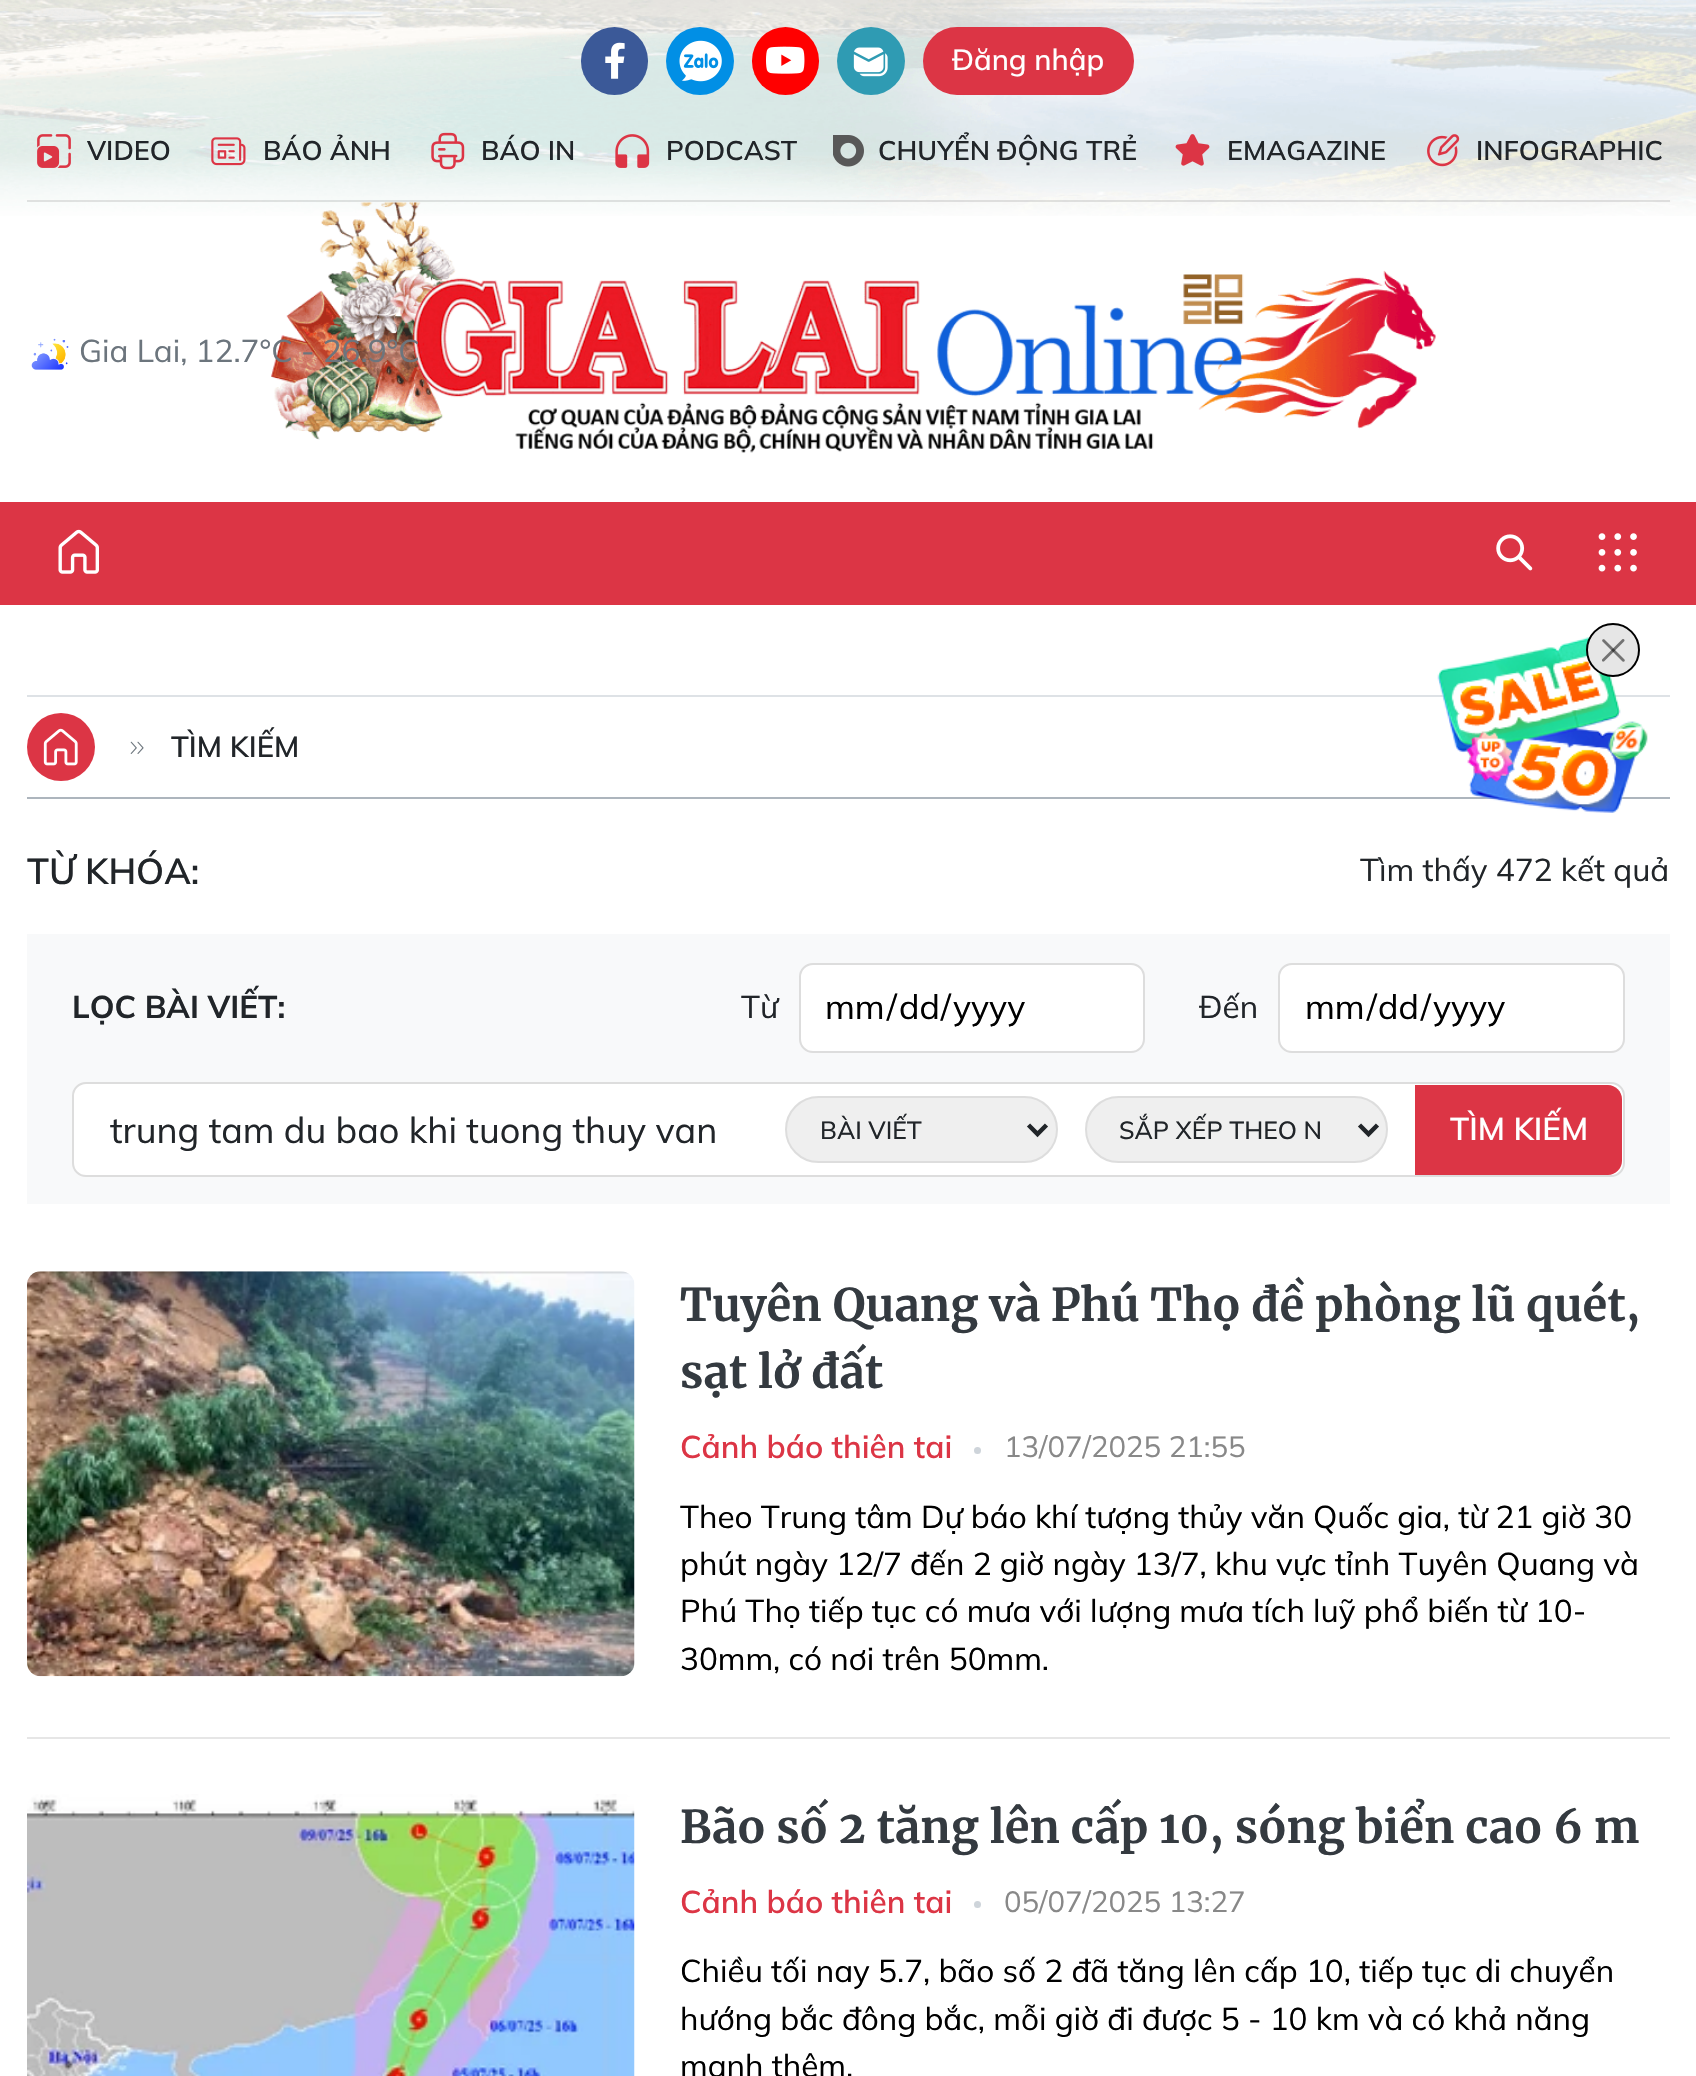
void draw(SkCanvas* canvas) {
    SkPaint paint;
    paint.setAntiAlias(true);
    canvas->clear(0xFFFFFFFF);
    canvas->drawImageRect(SkImages::DeferredFromEncodedData(SkData::MakeFromFileName("img1.png")), SkRect::MakeXYWH(0, 0, 1696, 216), SkSamplingOptions());
    paint.setColor(0x1A000000);
    canvas->drawRect(SkRect::MakeXYWH(27, 200, 1643, 2), paint);
    paint.setColor(0xFF3B5998);
    canvas->drawRoundRect(SkRect::MakeXYWH(581, 27, 67, 68), 33.5f, 33.5f, paint);
    canvas->drawImageRect(SkImages::DeferredFromEncodedData(SkData::MakeFromFileName("img2.png")), SkRect::MakeXYWH(605, 42, 20, 37), SkSamplingOptions());
    paint.setColor(0xFF018FE5);
    canvas->drawCircle(700, 61, 34, paint);
    canvas->drawImageRect(SkImages::DeferredFromEncodedData(SkData::MakeFromFileName("img3.png")), SkRect::MakeXYWH(679, 40, 43, 42), SkSamplingOptions());
    paint.setColor(0xFFFF0000);
    canvas->drawRoundRect(SkRect::MakeXYWH(752, 27, 67, 68), 33.5f, 33.5f, paint);
    canvas->drawImageRect(SkImages::DeferredFromEncodedData(SkData::MakeFromFileName("img4.png")), SkRect::MakeXYWH(766, 46, 39, 28), SkSamplingOptions());
    paint.setColor(0xFF2F9BB3);
    canvas->drawCircle(871, 61, 34, paint);
    canvas->drawImageRect(SkImages::DeferredFromEncodedData(SkData::MakeFromFileName("img5.png")), SkRect::MakeXYWH(853, 47, 35, 30), SkSamplingOptions());
    paint.setColor(0xFFDC3545);
    canvas->drawRoundRect(SkRect::MakeXYWH(924, 28, 209, 66), 33, 33, paint);
    paint.setStyle(SkPaint::kStroke_Style);
    paint.setStrokeWidth(2);
    canvas->drawRoundRect(SkRect::MakeXYWH(924, 28, 209, 66), 33, 33, paint);
    SkFont font1(fontMgr->matchFamilyStyle("Mulish", SkFontStyle(500, SkFontStyle::kNormal_Width, SkFontStyle::kUpright_Slant)), 29.25f);
    font1.setSubpixel(true);
    paint.setStyle(SkPaint::kFill_Style);
    paint.setColor(0xFFFFFFFF);
    canvas->drawString("Đăng nhập", 952, 70, font1, paint);
    canvas->drawImageRect(SkImages::DeferredFromEncodedData(SkData::MakeFromFileName("img6.png")), SkRect::MakeXYWH(37, 134, 34, 34), SkSamplingOptions());
    SkFont font2(fontMgr->matchFamilyStyle("Mulish", SkFontStyle(600, SkFontStyle::kNormal_Width, SkFontStyle::kUpright_Slant)), 27);
    font2.setSubpixel(true);
    paint.setColor(0xFF212529);
    canvas->drawString("VIDEO", 87, 160, font2, paint);
    canvas->drawImageRect(SkImages::DeferredFromEncodedData(SkData::MakeFromFileName("img7.png")), SkRect::MakeXYWH(211, 137, 35, 29), SkSamplingOptions());
    canvas->drawString("BÁO ẢNH", 263, 160, font2, paint);
    canvas->drawImageRect(SkImages::DeferredFromEncodedData(SkData::MakeFromFileName("img8.png")), SkRect::MakeXYWH(431, 132, 34, 38), SkSamplingOptions());
    canvas->drawString("BÁO IN", 481, 160, font2, paint);
    canvas->drawImageRect(SkImages::DeferredFromEncodedData(SkData::MakeFromFileName("img9.png")), SkRect::MakeXYWH(615, 134, 35, 34), SkSamplingOptions());
    canvas->drawString("PODCAST", 666, 160, font2, paint);
    canvas->drawImageRect(SkImages::DeferredFromEncodedData(SkData::MakeFromFileName("img10.png")), SkRect::MakeXYWH(833, 135, 31, 32), SkSamplingOptions());
    canvas->drawString("CHUYỂN ĐỘNG TRẺ", 878, 160, font2, paint);
    canvas->drawImageRect(SkImages::DeferredFromEncodedData(SkData::MakeFromFileName("img11.png")), SkRect::MakeXYWH(1175, 134, 35, 32), SkSamplingOptions());
    canvas->drawString("EMAGAZINE", 1227, 160, font2, paint);
    canvas->drawImageRect(SkImages::DeferredFromEncodedData(SkData::MakeFromFileName("img12.png")), SkRect::MakeXYWH(1427, 134, 33, 33), SkSamplingOptions());
    canvas->drawString("INFOGRAPHIC", 1476, 160, font2, paint);
    canvas->drawImageRect(SkImages::DeferredFromEncodedData(SkData::MakeFromFileName("img13.png")), SkRect::MakeXYWH(31, 338, 38, 32), SkSamplingOptions());
    canvas->drawImageRect(SkImages::DeferredFromEncodedData(SkData::MakeFromFileName("img14.png")), SkRect::MakeXYWH(271, 202, 1165, 251), SkSamplingOptions());
    SkFont font3(fontMgr->matchFamilyStyle("Mulish", SkFontStyle::Normal()), 31.5f);
    font3.setSubpixel(true);
    paint.setColor(0xFF6C757D);
    canvas->drawString("Gia Lai, 12.7°C - 26.9°C", 79, 362, font3, paint);
    paint.setColor(0xFFDC3545);
    canvas->drawRect(SkRect::MakeXYWH(0, 502, 1696, 103), paint);
    canvas->drawImageRect(SkImages::DeferredFromEncodedData(SkData::MakeFromFileName("img15.png")), SkRect::MakeXYWH(58, 529, 41, 45), SkSamplingOptions());
    canvas->drawImageRect(SkImages::DeferredFromEncodedData(SkData::MakeFromFileName("img16.png")), SkRect::MakeXYWH(1496, 534, 37, 37), SkSamplingOptions());
    canvas->drawImageRect(SkImages::DeferredFromEncodedData(SkData::MakeFromFileName("img17.png")), SkRect::MakeXYWH(1598, 533, 39, 39), SkSamplingOptions());
    paint.setColor(0xFFDEE2E6);
    canvas->drawRect(SkRect::MakeXYWH(27, 695, 1643, 2), paint);
    paint.setColor(0xFFADB5BD);
    canvas->drawRect(SkRect::MakeXYWH(27, 797, 1643, 2), paint);
    canvas->drawImageRect(SkImages::DeferredFromEncodedData(SkData::MakeFromFileName("img19.png")), SkRect::MakeXYWH(1437, 637, 211, 176), SkSamplingOptions());
    paint.setColor(0xFFE6E6E6);
    canvas->drawCircle(1613, 650, 26, paint);
    paint.setStyle(SkPaint::kStroke_Style);
    paint.setColor(0xFF000000);
    canvas->drawCircle(1613, 650, 26, paint);
    canvas->drawImageRect(SkImages::DeferredFromEncodedData(SkData::MakeFromFileName("img18.png")), SkRect::MakeXYWH(1602, 639, 23, 23), SkSamplingOptions());
    paint.setStyle(SkPaint::kFill_Style);
    paint.setColor(0xFFDC3545);
    canvas->drawCircle(61, 747, 34, paint);
    canvas->drawImageRect(SkImages::DeferredFromEncodedData(SkData::MakeFromFileName("img20.png")), SkRect::MakeXYWH(43, 728, 35, 38), SkSamplingOptions());
    canvas->drawImageRect(SkImages::DeferredFromEncodedData(SkData::MakeFromFileName("img21.png")), SkRect::MakeXYWH(130, 741, 14, 13), SkSamplingOptions());
    SkFont font4(fontMgr->matchFamilyStyle("Mulish", SkFontStyle(600, SkFontStyle::kNormal_Width, SkFontStyle::kUpright_Slant)), 29.25f);
    font4.setSubpixel(true);
    paint.setColor(0xFF212529);
    canvas->drawString("TÌM KIẾM", 171, 757, font4, paint);
    SkFont font5(fontMgr->matchFamilyStyle("Mulish", SkFontStyle(600, SkFontStyle::kNormal_Width, SkFontStyle::kUpright_Slant)), 36);
    font5.setSubpixel(true);
    canvas->drawString("TỪ KHÓA:", 27, 884, font5, paint);
    canvas->drawString("Tìm thấy 472 kết quả", 1360, 881, font3, paint);
    paint.setColor(0xFFF8F9FA);
    canvas->drawRect(SkRect::MakeXYWH(27, 934, 1643, 270), paint);
    SkFont font6(fontMgr->matchFamilyStyle("Mulish", SkFontStyle::Bold()), 31.5f);
    font6.setSubpixel(true);
    paint.setColor(0xFF212529);
    canvas->drawString("LỌC BÀI VIẾT:", 72, 1018, font6, paint);
    canvas->drawString("Từ", 741, 1018, font3, paint);
    paint.setColor(0xFFFFFFFF);
    canvas->drawRoundRect(SkRect::MakeXYWH(800, 964, 344, 88), 13, 13, paint);
    paint.setStyle(SkPaint::kStroke_Style);
    paint.setColor(0xFFDDDDDD);
    canvas->drawRoundRect(SkRect::MakeXYWH(800, 964, 344, 88), 13, 13, paint);
    SkFont font7(fontMgr->matchFamilyStyle("Mulish", SkFontStyle::Normal()), 34);
    font7.setSubpixel(true);
    paint.setStyle(SkPaint::kFill_Style);
    paint.setColor(0xFF000000);
    canvas->drawString("mm", 825, 1019, font7, paint);
    canvas->drawString("/", 887, 1019, font7, paint);
    canvas->drawString("dd", 899, 1019, font7, paint);
    canvas->drawString("/", 941, 1019, font7, paint);
    canvas->drawString("yyyy", 953, 1019, font7, paint);
    paint.setColor(0xFF212529);
    canvas->drawString("Đến", 1199, 1018, font3, paint);
    paint.setColor(0xFFFFFFFF);
    canvas->drawRoundRect(SkRect::MakeXYWH(1279, 964, 345, 88), 13, 13, paint);
    paint.setStyle(SkPaint::kStroke_Style);
    paint.setColor(0xFFDDDDDD);
    canvas->drawRoundRect(SkRect::MakeXYWH(1279, 964, 345, 88), 13, 13, paint);
    paint.setStyle(SkPaint::kFill_Style);
    paint.setColor(0xFF000000);
    canvas->drawString("mm", 1305, 1019, font7, paint);
    canvas->drawString("/", 1367, 1019, font7, paint);
    canvas->drawString("dd", 1378, 1019, font7, paint);
    canvas->drawString("/", 1421, 1019, font7, paint);
    canvas->drawString("yyyy", 1433, 1019, font7, paint);
    paint.setColor(0xFFFFFFFF);
    canvas->drawRoundRect(SkRect::MakeXYWH(73, 1083, 1551, 93), 13, 13, paint);
    paint.setStyle(SkPaint::kStroke_Style);
    paint.setColor(0xFFDDDDDD);
    canvas->drawRoundRect(SkRect::MakeXYWH(73, 1083, 1551, 93), 13, 13, paint);
    SkFont font8(fontMgr->matchFamilyStyle("Mulish", SkFontStyle::Normal()), 36);
    font8.setSubpixel(true);
    paint.setStyle(SkPaint::kFill_Style);
    paint.setColor(0xFF212529);
    canvas->drawString("trung tam du bao khi tuong thuy van", 110, 1143, font8, paint);
    paint.setColor(0xFFEFEFEF);
    canvas->drawRoundRect(SkRect::MakeXYWH(786, 1097, 271, 65), 32.5f, 32.5f, paint);
    paint.setStyle(SkPaint::kStroke_Style);
    paint.setColor(0xFFDDDDDD);
    canvas->drawRoundRect(SkRect::MakeXYWH(786, 1097, 271, 65), 32.5f, 32.5f, paint);
    paint.setStrokeWidth(4.5f);
    paint.setColor(0xFF212529);
    canvas->drawPath(SkPathBuilder().moveTo(1028.5f, 1125).lineTo(1037.5f, 1134).lineTo(1046.5f, 1125).detach(), paint);
    SkFont font9(fontMgr->matchFamilyStyle("Mulish", SkFontStyle(500, SkFontStyle::kNormal_Width, SkFontStyle::kUpright_Slant)), 24.75f);
    font9.setSubpixel(true);
    paint.setStyle(SkPaint::kFill_Style);
    canvas->drawString("BÀI VIẾT", 820, 1139, font9, paint);
    paint.setColor(0xFFEFEFEF);
    canvas->drawRoundRect(SkRect::MakeXYWH(1086, 1097, 301, 65), 32.5f, 32.5f, paint);
    paint.setStyle(SkPaint::kStroke_Style);
    paint.setStrokeWidth(2);
    paint.setColor(0xFFDDDDDD);
    canvas->drawRoundRect(SkRect::MakeXYWH(1086, 1097, 301, 65), 32.5f, 32.5f, paint);
    paint.setStrokeWidth(4.5f);
    paint.setColor(0xFF212529);
    canvas->drawPath(SkPathBuilder().moveTo(1359.5f, 1125).lineTo(1368.5f, 1134).lineTo(1377.5f, 1125).detach(), paint);
    paint.setStyle(SkPaint::kFill_Style);
    canvas->drawString("SẮP XẾP THEO N", 1119, 1139, font9, paint);
    paint.setColor(0xFFDC3545);
    canvas->drawPath(SkPathBuilder().moveTo(1415, 1085).lineTo(1608, 1085).cubicTo(1615.5f, 1085, 1622, 1091.5f, 1622, 1099).lineTo(1622, 1161).cubicTo(1622, 1168.5f, 1615.5f, 1175, 1608, 1175).lineTo(1415, 1175).close().detach(), paint);
    SkFont font10(fontMgr->matchFamilyStyle("Mulish", SkFontStyle(600, SkFontStyle::kNormal_Width, SkFontStyle::kUpright_Slant)), 31.5f);
    font10.setSubpixel(true);
    paint.setColor(0xFFFFFFFF);
    canvas->drawString("TÌM KIẾM", 1450, 1140, font10, paint);
    paint.setColor(0xFFE6E6E6);
    canvas->drawRect(SkRect::MakeXYWH(27, 1737, 1643, 2), paint);
    canvas->drawImageRect(SkImages::DeferredFromEncodedData(SkData::MakeFromFileName("img22.png")), SkRect::MakeXYWH(27, 1271, 608, 406), SkSamplingOptions());
    SkFont font11(fontMgr->matchFamilyStyle("Merriweather", SkFontStyle::Bold()), 45);
    font11.setSubpixel(true);
    paint.setColor(0xFF343A40);
    canvas->drawString("Tuyên Quang và Phú Thọ đề phòng lũ quét,", 680, 1321, font11, paint);
    canvas->drawString("sạt lở đất", 680, 1388, font11, paint);
    paint.setColor(0xFFDC3545);
    canvas->drawString("Cảnh báo thiên tai", 680, 1458, font10, paint);
    paint.setColor(0xFFCED4DA);
    canvas->drawCircle(977.5f, 1450.5f, 3.5f, paint);
    SkFont font12(fontMgr->matchFamilyStyle("Mulish", SkFontStyle::Normal()), 29.25f);
    font12.setSubpixel(true);
    paint.setColor(0xFF888888);
    canvas->drawString("13/07/2025 21:55", 1004, 1457, font12, paint);
    paint.setColor(0xFF000000);
    canvas->drawString("Theo Trung tâm Dự báo khí tượng thủy văn Quốc gia, từ 21 giờ 30", 680, 1528, font3, paint);
    canvas->drawString("phút ngày 12/7 đến 2 giờ ngày 13/7, khu vực tỉnh Tuyên Quang và", 680, 1575, font3, paint);
    canvas->drawString("Phú Thọ tiếp tục có mưa với lượng mưa tích luỹ phổ biến từ 10-", 680, 1622, font3, paint);
    canvas->drawString("30mm, có nơi trên 50mm.", 680, 1670, font3, paint);
    canvas->drawImageRect(SkImages::DeferredFromEncodedData(SkData::MakeFromFileName("img23.png")), SkRect::MakeXYWH(27, 1794, 608, 282), SkSamplingOptions());
    paint.setColor(0xFF343A40);
    canvas->drawString("Bão số 2 tăng lên cấp 10, sóng biển cao 6 m", 680, 1843, font11, paint);
    paint.setColor(0xFFDC3545);
    canvas->drawString("Cảnh báo thiên tai", 680, 1913, font10, paint);
    paint.setColor(0xFFCED4DA);
    canvas->drawCircle(977.5f, 1904.5f, 3.5f, paint);
    paint.setColor(0xFF888888);
    canvas->drawString("05/07/2025 13:27", 1004, 1912, font12, paint);
    paint.setColor(0xFF000000);
    canvas->drawString("Chiều tối nay 5.7, bão số 2 đã tăng lên cấp 10, tiếp tục di chuyển", 680, 1982, font3, paint);
    canvas->drawString("hướng bắc đông bắc, mỗi giờ đi được 5 - 10 km và có khả năng", 680, 2030, font3, paint);
    canvas->drawString("mạnh thêm.", 680, 2077, font3, paint);
}
